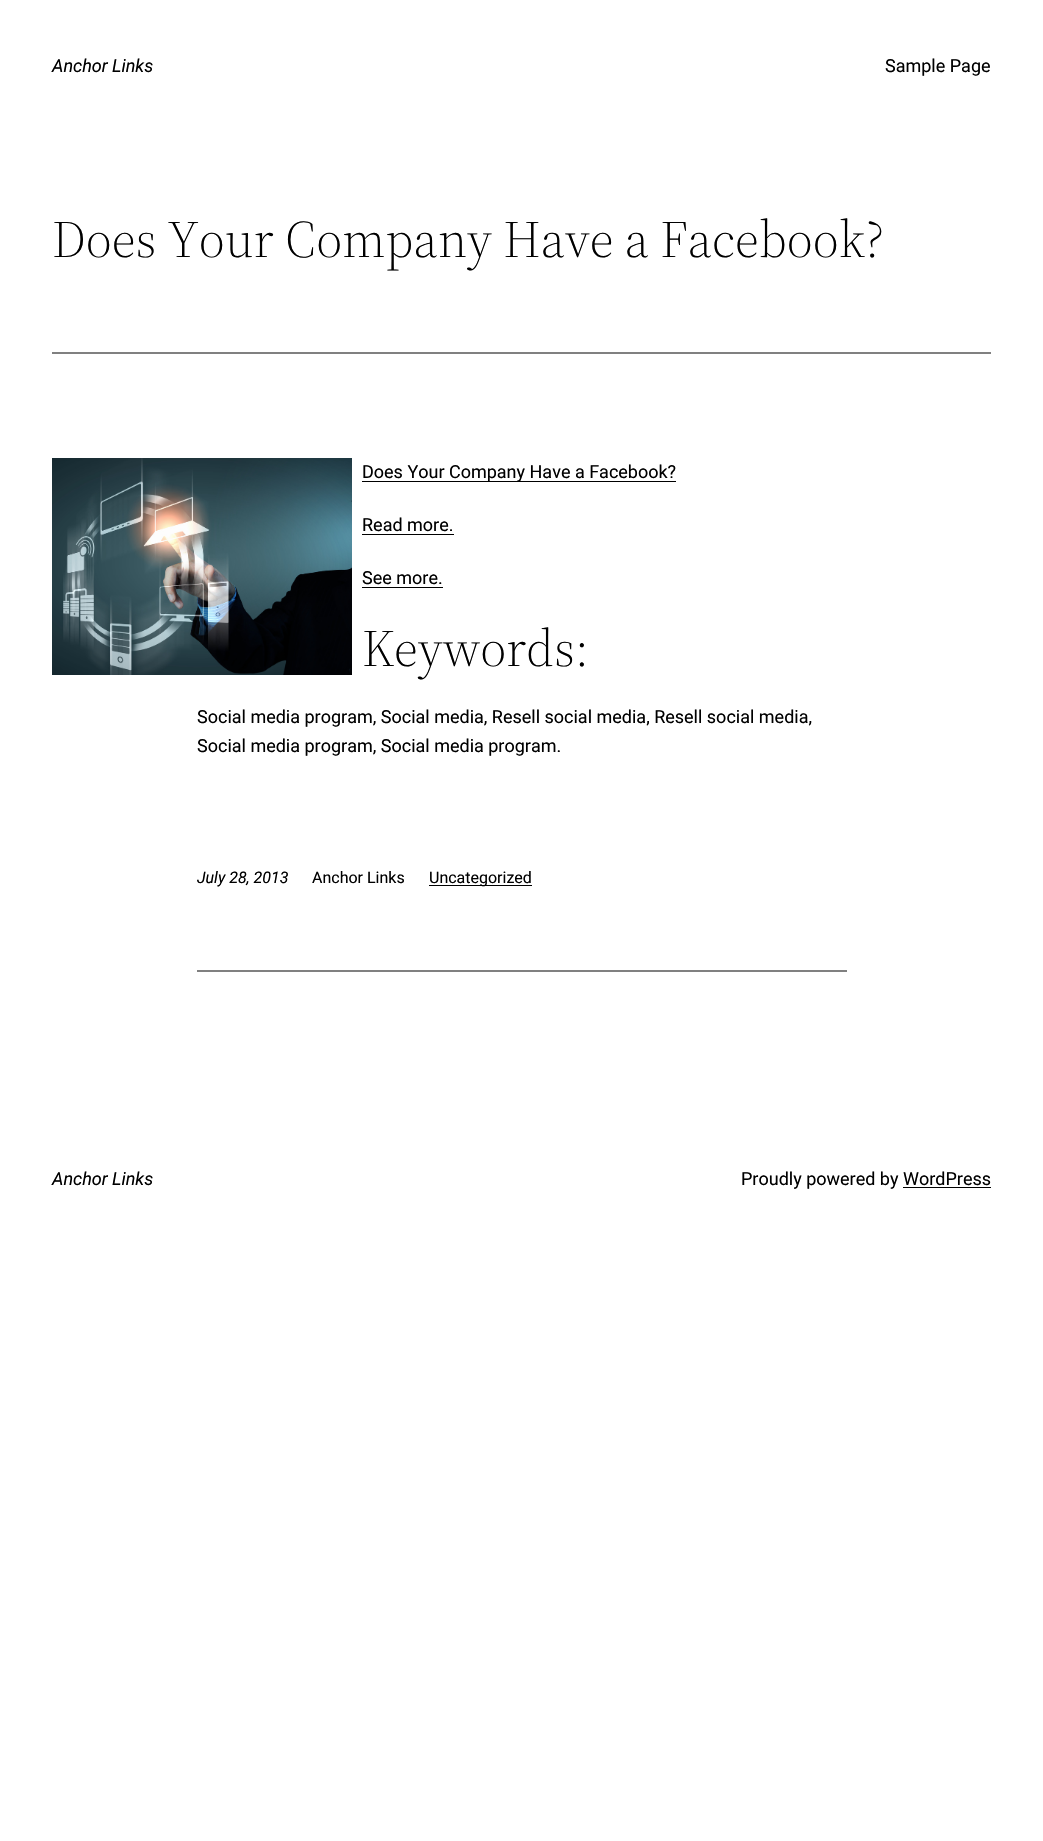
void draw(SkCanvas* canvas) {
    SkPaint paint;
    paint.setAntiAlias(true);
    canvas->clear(0xFFFFFFFF);
    SkFont font1(fontMgr->matchFamilyStyle("Roboto", SkFontStyle::Italic()), 18);
    font1.setSubpixel(true);
    paint.setColor(0xFF000000);
    canvas->drawString("Anchor Links", 52, 72, font1, paint);
    SkFont font2(fontMgr->matchFamilyStyle("Roboto", SkFontStyle::Normal()), 18);
    font2.setSubpixel(true);
    canvas->drawString("Sample Page", 885, 72, font2, paint);
    SkFont font3(fontMgr->matchFamilyStyle("Source Serif 4", SkFontStyle(300, SkFontStyle::kNormal_Width, SkFontStyle::kUpright_Slant)), 52);
    font3.setSubpixel(true);
    canvas->drawString("Does Your Company Have a Facebook?", 52, 257, font3, paint);
    paint.setColor(0xFF808080);
    canvas->drawRect(SkRect::MakeXYWH(52, 352, 939, 2), paint);
    canvas->drawImageRect(SkImages::DeferredFromEncodedData(SkData::MakeFromFileName("img1.png")), SkRect::MakeXYWH(52, 458, 300, 217), SkSamplingOptions());
    paint.setColor(0xFF000000);
    canvas->drawRect(SkRect::MakeXYWH(362, 481, 314, 1), paint);
    canvas->drawString("Does Your Company Have a Facebook?", 362, 478, font2, paint);
    canvas->drawString("Read more.", 362, 531, font2, paint);
    canvas->drawRect(SkRect::MakeXYWH(362, 534, 92, 1), paint);
    canvas->drawString("See more.", 362, 584, font2, paint);
    canvas->drawRect(SkRect::MakeXYWH(362, 587, 81, 1), paint);
    canvas->drawString("Keywords:", 362, 666, font3, paint);
    canvas->drawString("Social media program, Social media, Resell social media, Resell social media,", 197, 723, font2, paint);
    canvas->drawString("Social media program, Social media program.", 197, 752, font2, paint);
    SkFont font4(fontMgr->matchFamilyStyle("Roboto", SkFontStyle::Italic()), 16);
    font4.setSubpixel(true);
    canvas->drawString("July 28, 2013", 197, 883, font4, paint);
    SkFont font5(fontMgr->matchFamilyStyle("Roboto", SkFontStyle::Normal()), 16);
    font5.setSubpixel(true);
    canvas->drawString("Anchor Links", 312, 883, font5, paint);
    canvas->drawRect(SkRect::MakeXYWH(429, 885, 103, 1), paint);
    canvas->drawString("Uncategorized", 429, 883, font5, paint);
    paint.setColor(0xFF808080);
    canvas->drawRect(SkRect::MakeXYWH(197, 970, 650, 2), paint);
    paint.setColor(0xFF000000);
    canvas->drawString("Anchor Links", 52, 1185, font1, paint);
    canvas->drawString("Proudly powered by WordPress", 741, 1185, font2, paint);
    canvas->drawRect(SkRect::MakeXYWH(903, 1187, 88, 1), paint);
}
